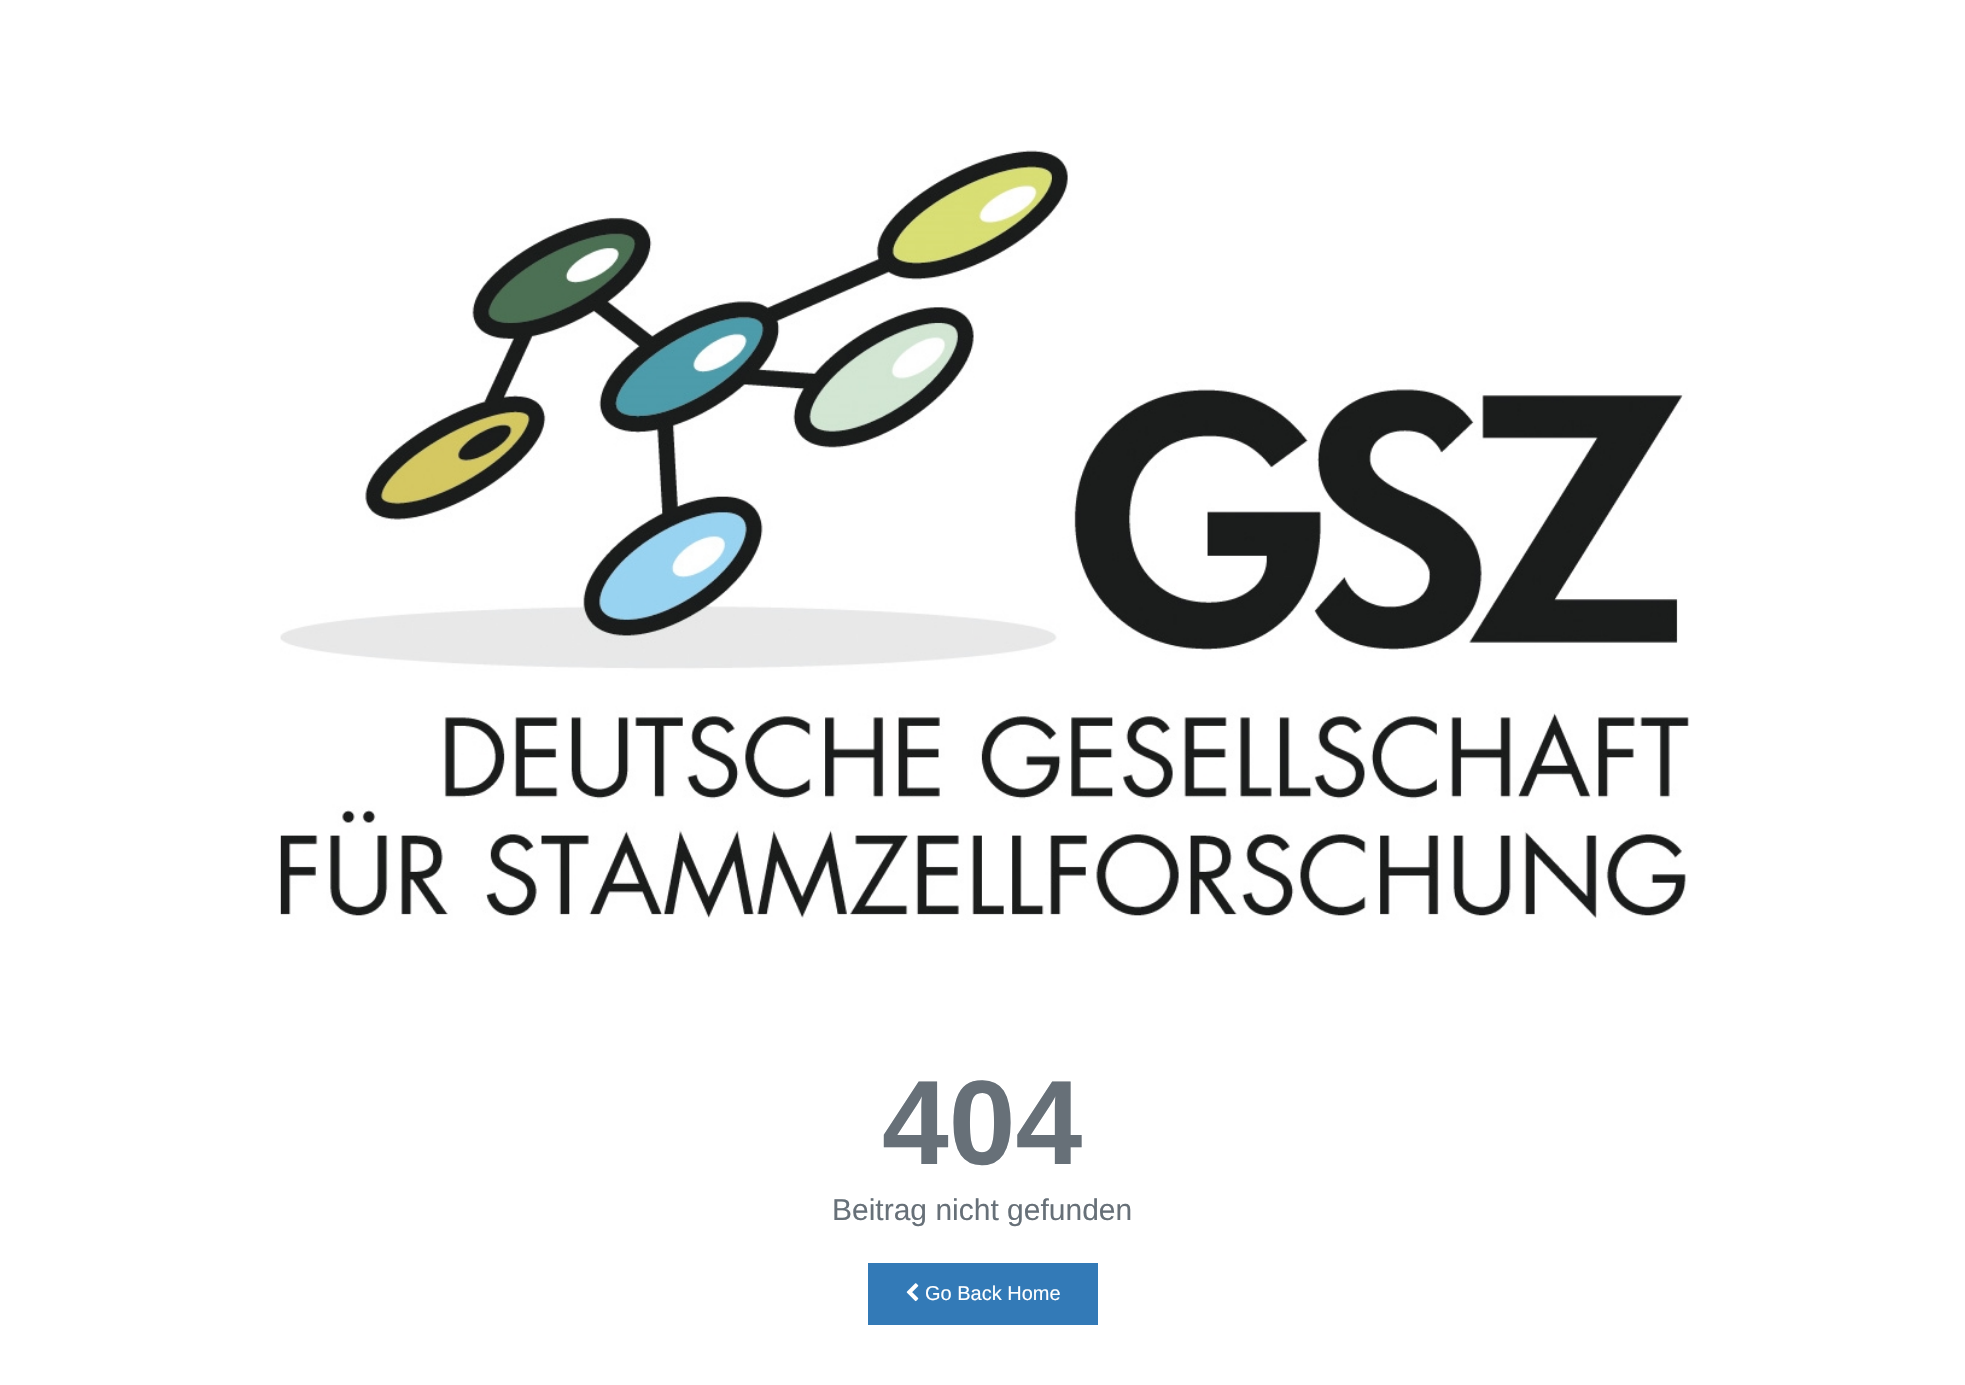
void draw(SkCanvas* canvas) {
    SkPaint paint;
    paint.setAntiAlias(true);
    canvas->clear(0xFFFFFFFF);
    canvas->drawImageRect(SkImages::DeferredFromEncodedData(SkData::MakeFromFileName("img1.png")), SkRect::MakeXYWH(280, 150, 1410, 770), SkSamplingOptions());
    SkFont font1(fontMgr->matchFamilyStyle("Liberation Sans", SkFontStyle::Bold()), 120);
    font1.setSubpixel(true);
    paint.setColor(0xFF677078);
    canvas->drawString("404", 882, 1164, font1, paint);
    SkFont font2(fontMgr->matchFamilyStyle("Liberation Sans", SkFontStyle::Normal()), 30);
    font2.setSubpixel(true);
    canvas->drawString("Beitrag nicht gefunden", 832, 1220, font2, paint);
    paint.setColor(0xFF337AB7);
    canvas->drawRect(SkRect::MakeXYWH(868, 1263, 230, 62), paint);
    canvas->drawImageRect(SkImages::DeferredFromEncodedData(SkData::MakeFromFileName("img2.png")), SkRect::MakeXYWH(906, 1283, 13, 19), SkSamplingOptions());
    SkFont font3(fontMgr->matchFamilyStyle("Liberation Sans", SkFontStyle::Normal()), 20);
    font3.setSubpixel(true);
    paint.setColor(0xFFFFFFFF);
    canvas->drawString("Go Back Home", 925, 1300, font3, paint);
}
